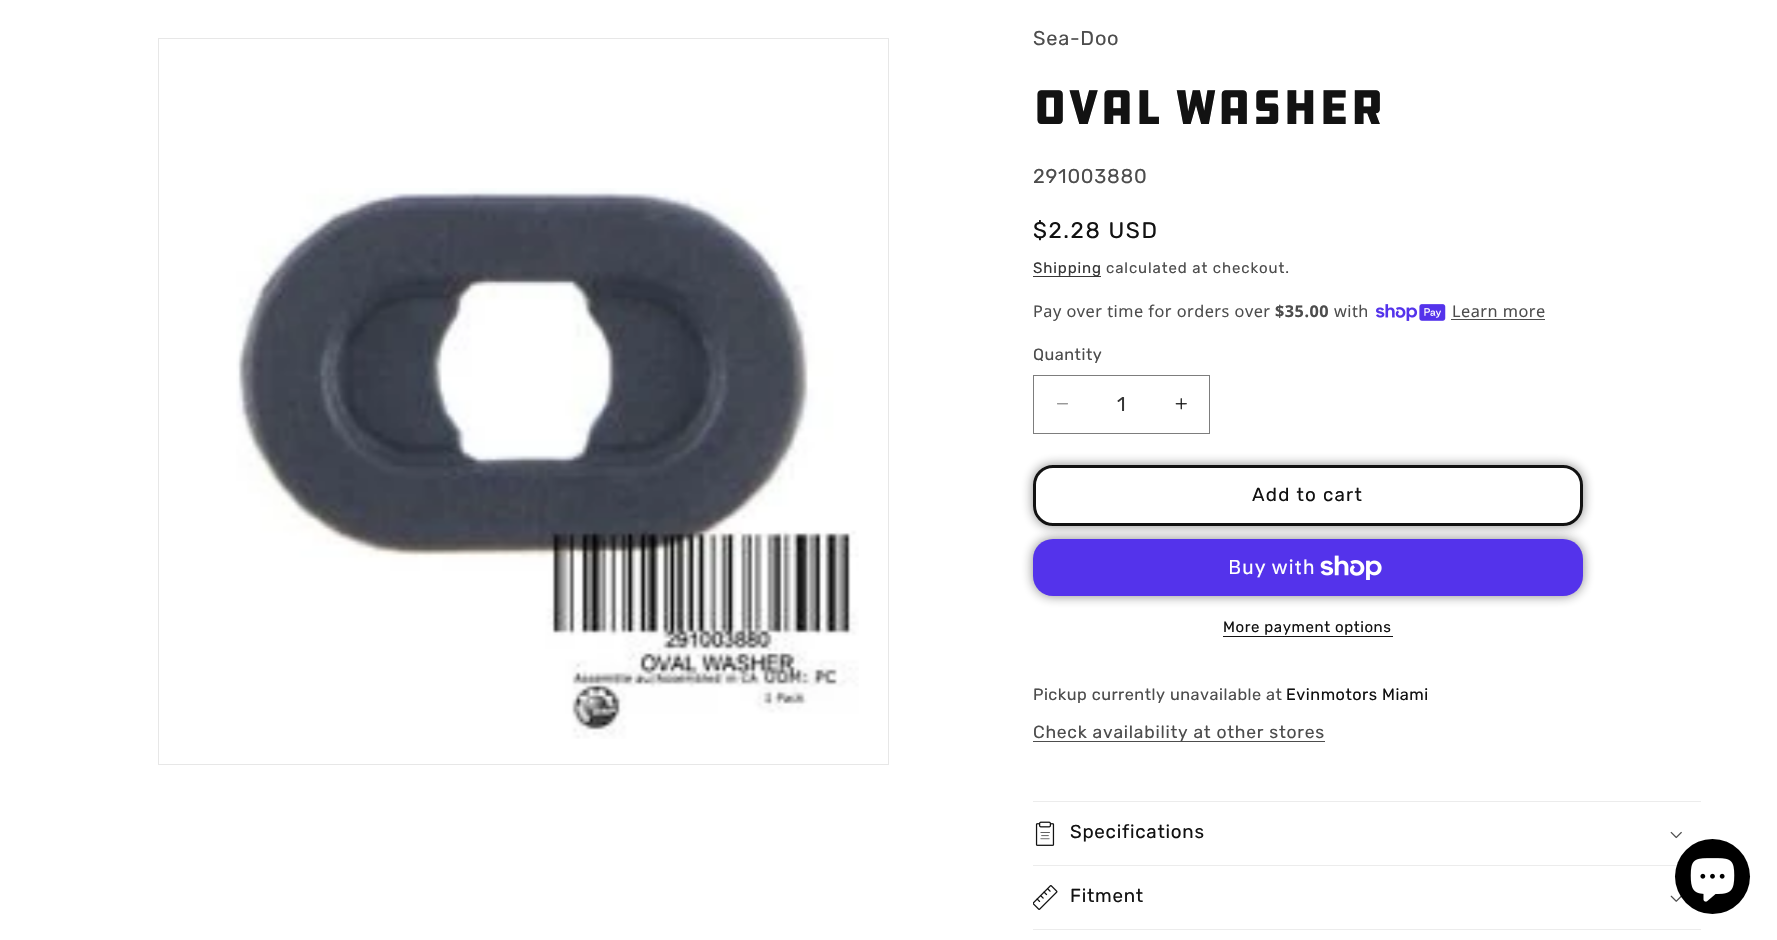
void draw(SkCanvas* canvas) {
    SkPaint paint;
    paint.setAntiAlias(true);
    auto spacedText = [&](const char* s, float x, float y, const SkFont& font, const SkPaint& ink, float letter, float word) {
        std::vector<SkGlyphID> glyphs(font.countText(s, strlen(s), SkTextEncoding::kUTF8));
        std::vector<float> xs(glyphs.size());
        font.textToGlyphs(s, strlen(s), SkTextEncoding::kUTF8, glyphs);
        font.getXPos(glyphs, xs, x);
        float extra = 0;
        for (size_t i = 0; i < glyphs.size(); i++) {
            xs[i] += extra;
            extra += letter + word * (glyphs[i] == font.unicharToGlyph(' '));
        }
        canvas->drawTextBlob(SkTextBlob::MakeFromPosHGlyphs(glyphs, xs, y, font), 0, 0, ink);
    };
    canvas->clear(0xFFFFFFFF);
    paint.setStyle(SkPaint::kStroke_Style);
    paint.setStrokeWidth(1);
    paint.setColor(0xFFE7E7E7);
    canvas->drawRect(SkRect::MakeXYWH(158.5f, 38.5f, 730, 726), paint);
    canvas->drawImageRect(SkImages::DeferredFromEncodedData(SkData::MakeFromFileName("img1.png")), SkRect::MakeXYWH(236, 188, 623, 551), SkSamplingOptions());
    SkFont font1(fontMgr->matchFamilyStyle("Rubik", SkFontStyle::Normal()), 20);
    font1.setSubpixel(true);
    paint.setStyle(SkPaint::kFill_Style);
    paint.setColor(0xFF4D4D4D);
    spacedText("Sea-Doo", 1033, 45, font1, paint, 0.75f, 0);
    SkFont font2(fontMgr->matchFamilyStyle("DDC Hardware", SkFontStyle::Normal()), 50);
    font2.setSubpixel(true);
    paint.setColor(0xFF121212);
    spacedText("OVAL WASHER", 1033, 124, font2, paint, 0.75f, 0);
    paint.setColor(0xFF4D4D4D);
    spacedText("291003880", 1033, 183, font1, paint, 0.75f, 0);
    SkFont font3(fontMgr->matchFamilyStyle("Rubik", SkFontStyle::Normal()), 22.5f);
    font3.setSubpixel(true);
    paint.setColor(0xFF121212);
    spacedText("$2.28 USD", 1033, 238, font3, paint, 1.6f, 0);
    paint.setColor(0xFF363636);
    canvas->drawRect(SkRect::MakeXYWH(1033, 276, 68, 1), paint);
    SkFont font4(fontMgr->matchFamilyStyle("Rubik", SkFontStyle::Normal()), 15);
    font4.setSubpixel(true);
    paint.setColor(0xFF353535);
    spacedText("Shipping", 1033, 273, font4, paint, 0.9f, 0);
    paint.setColor(0xFF4D4D4D);
    spacedText("calculated at checkout.", 1106, 273, font4, paint, 0.9f, 0);
    SkFont font5(fontMgr->matchFamilyStyle("Noto Sans", SkFontStyle::Normal()), 16.25f);
    font5.setSubpixel(true);
    spacedText("Pay over time for orders over", 1033, 317, font5, paint, 0.5f, 0);
    SkFont font6(fontMgr->matchFamilyStyle("Noto Sans", SkFontStyle::Bold()), 16.25f);
    font6.setSubpixel(true);
    spacedText("$35.00", 1275, 317, font6, paint, 0.5f, 0);
    spacedText("with", 1334, 317, font5, paint, 0.5f, 0);
    canvas->drawImageRect(SkImages::DeferredFromEncodedData(SkData::MakeFromFileName("img2.png")), SkRect::MakeXYWH(1376, 304, 70, 17), SkSamplingOptions());
    spacedText("Learn more", 1452, 317, font5, paint, 0.5f, 0);
    canvas->drawRect(SkRect::MakeXYWH(1451, 319, 94, 1), paint);
    SkFont font7(fontMgr->matchFamilyStyle("Rubik", SkFontStyle::Normal()), 16.25f);
    font7.setSubpixel(true);
    spacedText("Quantity", 1033, 360, font7, paint, 0.5f, 0);
    canvas->drawImageRect(SkImages::DeferredFromEncodedData(SkData::MakeFromFileName("img3.png")), SkRect::MakeXYWH(1057, 403, 11, 2), SkSamplingOptions());
    canvas->drawImageRect(SkImages::DeferredFromEncodedData(SkData::MakeFromFileName("img4.png")), SkRect::MakeXYWH(1175, 398, 12, 12), SkSamplingOptions());
    paint.setStyle(SkPaint::kStroke_Style);
    paint.setColor(0xFF7D7D7D);
    canvas->drawRect(SkRect::MakeXYWH(1033.5f, 375.5f, 176, 58), paint);
    paint.setStyle(SkPaint::kFill_Style);
    paint.setColor(0xFF353535);
    canvas->drawString("1", 1117, 411, font1, paint);
    paint.setColor(0x80121212);
    paint.setMaskFilter(SkMaskFilter::MakeBlur(kNormal_SkBlurStyle, 6));
    canvas->drawRoundRect(SkRect::MakeXYWH(1033, 465, 550, 61), 20, 20, paint);
    paint.setMaskFilter(nullptr);
    paint.setMaskFilter(SkMaskFilter::MakeBlur(kNormal_SkBlurStyle, 6));
    canvas->drawRoundRect(SkRect::MakeXYWH(1033, 539, 550, 57), 20, 20, paint);
    paint.setMaskFilter(nullptr);
    paint.setColor(0xFFFFFFFF);
    canvas->drawRoundRect(SkRect::MakeXYWH(1033, 465, 550, 61), 20, 20, paint);
    paint.setStyle(SkPaint::kStroke_Style);
    paint.setStrokeWidth(3);
    canvas->drawRoundRect(SkRect::MakeXYWH(1034.5f, 466.5f, 547, 58), 18.5f, 18.5f, paint);
    paint.setColor(0xFF121212);
    canvas->drawRoundRect(SkRect::MakeXYWH(1034.5f, 466.5f, 547, 58), 18.5f, 18.5f, paint);
    SkFont font8(fontMgr->matchFamilyStyle("Rubik", SkFontStyle::Normal()), 18.75f);
    font8.setSubpixel(true);
    paint.setStyle(SkPaint::kFill_Style);
    spacedText("Add to cart", 1252, 501, font8, paint, 1.25f, 0);
    paint.setColor(0xFF5433EB);
    canvas->drawRoundRect(SkRect::MakeXYWH(1033, 539, 550, 57), 20, 20, paint);
    SkFont font9(fontMgr->matchFamilyStyle("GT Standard", SkFontStyle::Normal()), 20);
    font9.setSubpixel(true);
    paint.setColor(0xFFFFFFFF);
    spacedText("Buy with", 1228, 574, font9, paint, 0.75f, 0);
    canvas->drawImageRect(SkImages::DeferredFromEncodedData(SkData::MakeFromFileName("img5.png")), SkRect::MakeXYWH(1320, 555, 62, 25), SkSamplingOptions());
    paint.setColor(0xFF121212);
    spacedText("More payment options", 1223, 632, font4, paint, 0.6f, 0);
    canvas->drawRect(SkRect::MakeXYWH(1223, 636, 170, 1), paint);
    paint.setColor(0xFF4D4D4D);
    spacedText("Pickup currently unavailable at", 1033, 700, font7, paint, 0.5f, 0);
    paint.setColor(0xFF121212);
    spacedText("Evinmotors Miami", 1286, 700, font7, paint, 0.5f, 0);
    paint.setColor(0xFF4D4D4D);
    canvas->drawRect(SkRect::MakeXYWH(1033, 741, 292, 1), paint);
    SkFont font10(fontMgr->matchFamilyStyle("Rubik", SkFontStyle::Normal()), 17.5f);
    font10.setSubpixel(true);
    spacedText("Check availability at other stores", 1033, 738, font10, paint, 0.75f, 0);
    paint.setColor(0xFFECECEC);
    canvas->drawRect(SkRect::MakeXYWH(1033, 801, 668, 1), paint);
    canvas->drawRect(SkRect::MakeXYWH(1033, 865, 644, 1), paint);
    canvas->drawImageRect(SkImages::DeferredFromEncodedData(SkData::MakeFromFileName("img6.png")), SkRect::MakeXYWH(1035, 821, 20, 25), SkSamplingOptions());
    paint.setColor(0xFF121212);
    spacedText("Specifications", 1070, 838, font8, paint, 0.75f, 0);
    canvas->drawImageRect(SkImages::DeferredFromEncodedData(SkData::MakeFromFileName("img7.png")), SkRect::MakeXYWH(1670, 831, 12, 8), SkSamplingOptions());
    paint.setColor(0xFFECECEC);
    canvas->drawRect(SkRect::MakeXYWH(1033, 929, 668, 1), paint);
    canvas->drawImageRect(SkImages::DeferredFromEncodedData(SkData::MakeFromFileName("img8.png")), SkRect::MakeXYWH(1033, 885, 25, 25), SkSamplingOptions());
    paint.setColor(0xFF121212);
    spacedText("Fitment", 1070, 902, font8, paint, 0.75f, 0);
    canvas->drawImageRect(SkImages::DeferredFromEncodedData(SkData::MakeFromFileName("img9.png")), SkRect::MakeXYWH(1670, 895, 12, 7), SkSamplingOptions());
    paint.setColor(0xFF000000);
    canvas->drawCircle(1712.5f, 876.5f, 37.5f, paint);
    canvas->drawImageRect(SkImages::DeferredFromEncodedData(SkData::MakeFromFileName("img10.png")), SkRect::MakeXYWH(1690, 858, 45, 44), SkSamplingOptions());
}
